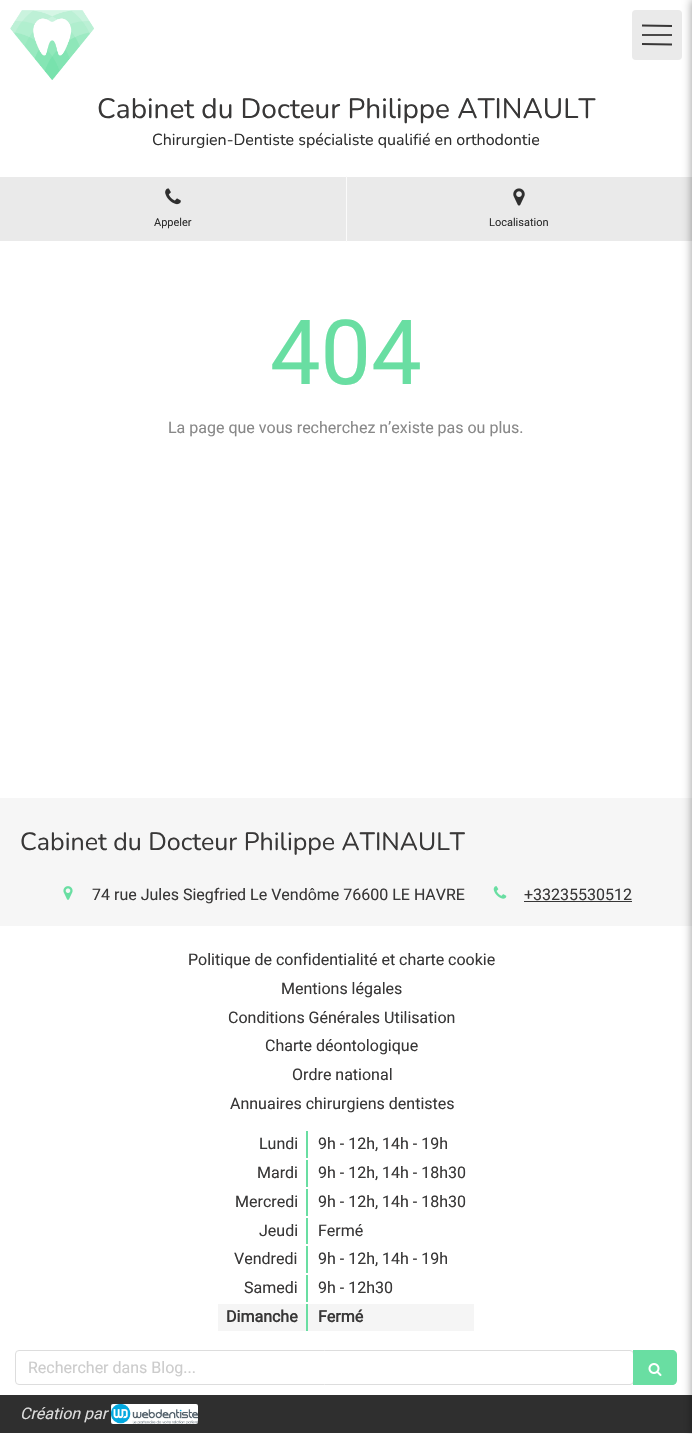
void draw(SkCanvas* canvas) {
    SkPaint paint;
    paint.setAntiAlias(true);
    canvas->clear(0xFFFFFFFF);
    canvas->drawImageRect(SkImages::DeferredFromEncodedData(SkData::MakeFromFileName("img1.png")), SkRect::MakeXYWH(10, 10, 84, 70), SkSamplingOptions());
    paint.setColor(0xFFEAEAEA);
    canvas->drawRoundRect(SkRect::MakeXYWH(632, 10, 50, 50), 4, 4, paint);
    paint.setColor(0xFF4A4949);
    canvas->drawRect(SkRect::MakeXYWH(642, 34, 30, 2), paint);
    paint.setStyle(SkPaint::kStroke_Style);
    paint.setStrokeWidth(1.8f);
    paint.setColor(0xFF383737);
    canvas->drawPath(SkPathBuilder().moveTo(642, 25.5f).lineTo(672, 26).moveTo(642, 44).lineTo(672, 44.5f).detach(), paint);
    SkFont font1(fontMgr->matchFamilyStyle("Nunito", SkFontStyle::Normal()), 28);
    font1.setSubpixel(true);
    paint.setStyle(SkPaint::kFill_Style);
    canvas->drawString("Cabinet du Docteur Philippe ATINAULT", 97, 118, font1, paint);
    SkFont font2(fontMgr->matchFamilyStyle("Nunito", SkFontStyle::Normal()), 16);
    font2.setSubpixel(true);
    paint.setColor(0xFF2F2F2F);
    canvas->drawString("Chirurgien-Dentiste spécialiste qualifié en orthodontie", 152, 145, font2, paint);
    paint.setColor(0xFFEAEAEA);
    canvas->drawRect(SkRect::MakeXYWH(0, 177, 692, 64), paint);
    canvas->drawImageRect(SkImages::DeferredFromEncodedData(SkData::MakeFromFileName("img2.png")), SkRect::MakeXYWH(165, 188, 16, 17), SkSamplingOptions());
    SkFont font3(fontMgr->matchFamilyStyle("Roboto", SkFontStyle::Normal()), 11);
    font3.setSubpixel(true);
    paint.setColor(0xFF2F2F2F);
    canvas->drawString("Appeler", 154, 226, font3, paint);
    paint.setColor(0xFFFBFBFB);
    canvas->drawRect(SkRect::MakeXYWH(346, 176, 1, 66), paint);
    canvas->drawImageRect(SkImages::DeferredFromEncodedData(SkData::MakeFromFileName("img3.png")), SkRect::MakeXYWH(513, 188, 12, 18), SkSamplingOptions());
    paint.setColor(0xFF2F2F2F);
    canvas->drawString("Localisation", 489, 226, font3, paint);
    SkFont font4(fontMgr->matchFamilyStyle("Roboto", SkFontStyle::Normal()), 90);
    font4.setSubpixel(true);
    paint.setColor(0xFF69DEA2);
    canvas->drawString("404", 270, 384, font4, paint);
    SkFont font5(fontMgr->matchFamilyStyle("Roboto", SkFontStyle::Normal()), 16);
    font5.setSubpixel(true);
    paint.setColor(0xFF888888);
    canvas->drawString("La page que vous recherchez n’existe pas ou plus.", 168, 433, font5, paint);
    paint.setColor(0xFF2F2F2F);
    canvas->drawRect(SkRect::MakeXYWH(0, 1395, 692, 38), paint);
    paint.setColor(0xFFF6F6F6);
    canvas->drawRect(SkRect::MakeXYWH(0, 798, 692, 128), paint);
    SkFont font6(fontMgr->matchFamilyStyle("Nunito", SkFontStyle::Normal()), 25);
    font6.setSubpixel(true);
    paint.setColor(0xFF383737);
    canvas->drawString("Cabinet du Docteur Philippe ATINAULT", 20, 850, font6, paint);
    canvas->drawImageRect(SkImages::DeferredFromEncodedData(SkData::MakeFromFileName("img4.png")), SkRect::MakeXYWH(63, 886, 10, 14), SkSamplingOptions());
    canvas->drawString("74 rue Jules Siegfried Le Vendôme 76600 LE HAVRE", 92, 900, font5, paint);
    canvas->drawImageRect(SkImages::DeferredFromEncodedData(SkData::MakeFromFileName("img5.png")), SkRect::MakeXYWH(493, 886, 14, 13), SkSamplingOptions());
    canvas->drawString("+33235530512", 524, 900, font5, paint);
    canvas->drawRect(SkRect::MakeXYWH(524, 901, 108, 1), paint);
    canvas->drawString("Politique de confidentialité et charte cookie", 188, 965, font5, paint);
    canvas->drawString("Mentions légales", 281, 994, font5, paint);
    canvas->drawString("Conditions Générales Utilisation", 228, 1023, font5, paint);
    canvas->drawString("Charte déontologique", 265, 1051, font5, paint);
    canvas->drawString("Ordre national", 292, 1080, font5, paint);
    canvas->drawString("Annuaires chirurgiens dentistes", 230, 1109, font5, paint);
    paint.setColor(0xFF69DEA2);
    canvas->drawRect(SkRect::MakeXYWH(306, 1131, 2, 27), paint);
    paint.setColor(0xFF383737);
    canvas->drawString("Lundi", 259, 1149, font5, paint);
    canvas->drawString("9h - 12h, 14h - 19h", 318, 1149, font5, paint);
    paint.setColor(0xFF69DEA2);
    canvas->drawRect(SkRect::MakeXYWH(306, 1160, 2, 27), paint);
    paint.setColor(0xFF383737);
    canvas->drawString("Mardi", 257, 1178, font5, paint);
    canvas->drawString("9h - 12h, 14h - 18h30", 318, 1178, font5, paint);
    paint.setColor(0xFF69DEA2);
    canvas->drawRect(SkRect::MakeXYWH(306, 1189, 2, 27), paint);
    paint.setColor(0xFF383737);
    canvas->drawString("Mercredi", 235, 1207, font5, paint);
    canvas->drawString("9h - 12h, 14h - 18h30", 318, 1207, font5, paint);
    paint.setColor(0xFF69DEA2);
    canvas->drawRect(SkRect::MakeXYWH(306, 1218, 2, 26), paint);
    paint.setColor(0xFF383737);
    canvas->drawString("Jeudi", 259, 1236, font5, paint);
    canvas->drawString("Fermé", 318, 1236, font5, paint);
    paint.setColor(0xFF69DEA2);
    canvas->drawRect(SkRect::MakeXYWH(306, 1246, 2, 27), paint);
    paint.setColor(0xFF383737);
    canvas->drawString("Vendredi", 234, 1264, font5, paint);
    canvas->drawString("9h - 12h, 14h - 19h", 318, 1264, font5, paint);
    paint.setColor(0xFF69DEA2);
    canvas->drawRect(SkRect::MakeXYWH(306, 1275, 2, 27), paint);
    paint.setColor(0xFF383737);
    canvas->drawString("Samedi", 244, 1293, font5, paint);
    canvas->drawString("9h - 12h30", 318, 1293, font5, paint);
    paint.setColor(0xFFF5F5F5);
    canvas->drawRect(SkRect::MakeXYWH(218, 1304, 256, 27), paint);
    paint.setColor(0xFF69DEA2);
    canvas->drawRect(SkRect::MakeXYWH(306, 1304, 2, 27), paint);
    SkFont font7(fontMgr->matchFamilyStyle("Roboto", SkFontStyle::Bold()), 16);
    font7.setSubpixel(true);
    paint.setColor(0xFF383737);
    canvas->drawString("Dimanche", 226, 1322, font7, paint);
    canvas->drawString("Fermé", 318, 1322, font7, paint);
    paint.setStyle(SkPaint::kStroke_Style);
    paint.setStrokeWidth(1);
    paint.setColor(0xFFDDDDDD);
    canvas->drawRoundRect(SkRect::MakeXYWH(15.5f, 1350.5f, 618, 34), 3.5f, 3.5f, paint);
    paint.setStyle(SkPaint::kFill_Style);
    paint.setColor(0xFFCCCCCC);
    canvas->drawString("Rechercher dans Blog...", 28, 1373, font5, paint);
    paint.setColor(0xFF69DEA2);
    canvas->drawPath(SkPathBuilder().moveTo(633, 1350).lineTo(672, 1350).cubicTo(675, 1350, 677, 1352, 677, 1355).lineTo(677, 1380).cubicTo(677, 1383, 675, 1385, 672, 1385).lineTo(633, 1385).close().detach(), paint);
    canvas->drawImageRect(SkImages::DeferredFromEncodedData(SkData::MakeFromFileName("img6.png")), SkRect::MakeXYWH(648, 1363, 14, 13), SkSamplingOptions());
    SkFont font8(fontMgr->matchFamilyStyle("Roboto", SkFontStyle::Italic()), 16);
    font8.setSubpixel(true);
    paint.setColor(0xFFDCDCDC);
    canvas->drawString("Création par", 20, 1419, font8, paint);
    canvas->drawImageRect(SkImages::DeferredFromEncodedData(SkData::MakeFromFileName("img7.png")), SkRect::MakeXYWH(111, 1404, 87, 20), SkSamplingOptions());
    paint.setColor(0x66000000);
    paint.setMaskFilter(SkMaskFilter::MakeBlur(kNormal_SkBlurStyle, 5));
    canvas->drawRect(SkRect::MakeXYWH(692, 0, 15, 1434), paint);
    paint.setMaskFilter(nullptr);
}
